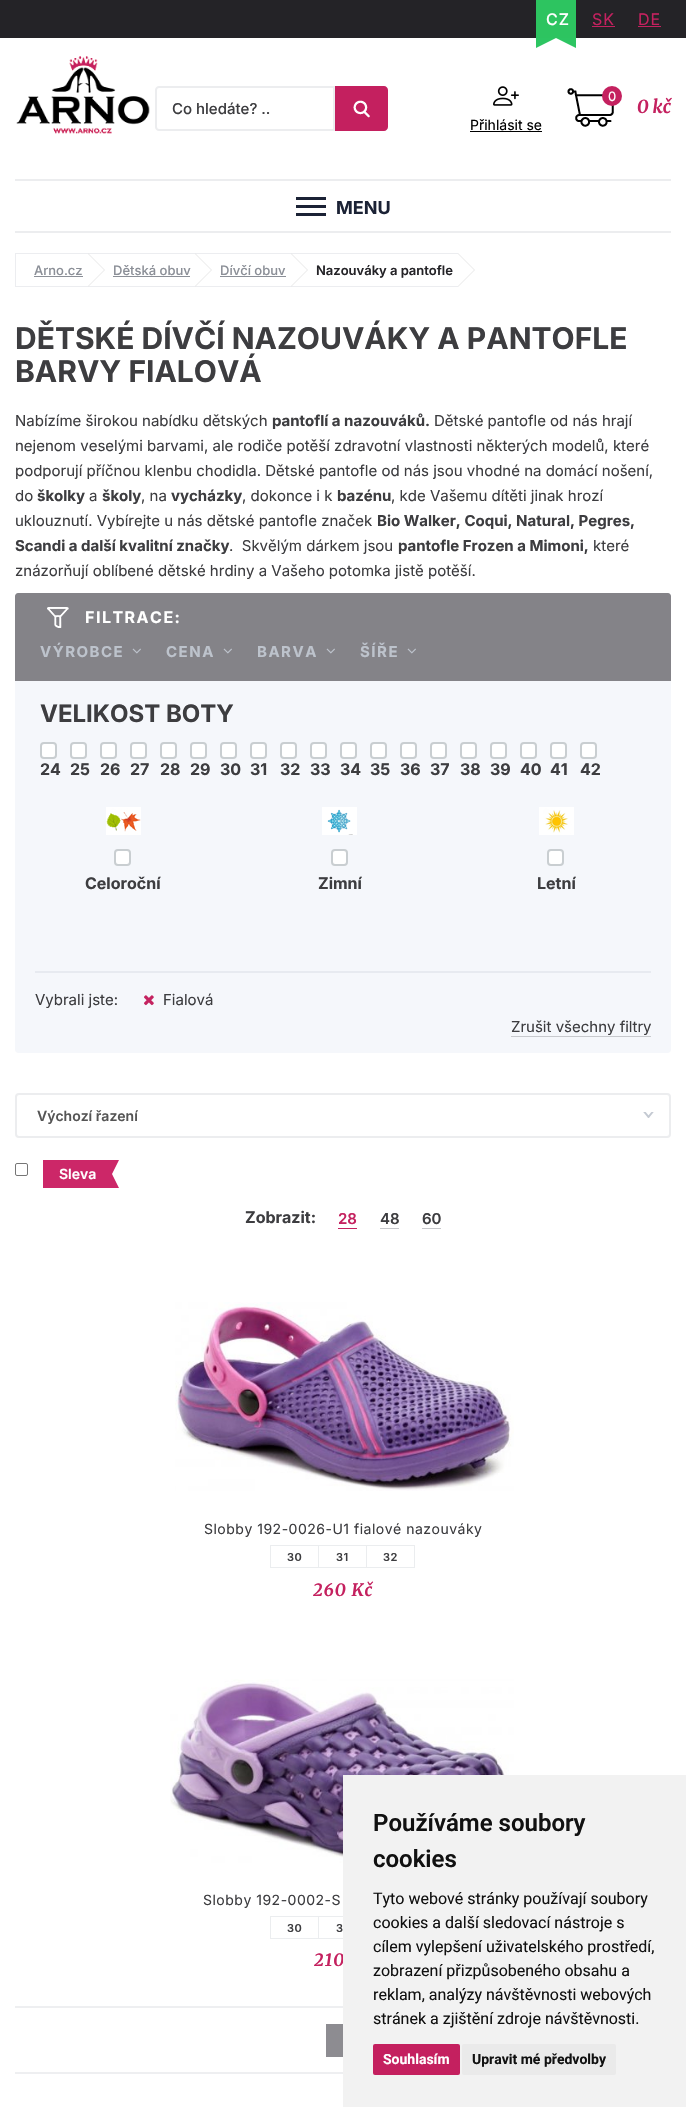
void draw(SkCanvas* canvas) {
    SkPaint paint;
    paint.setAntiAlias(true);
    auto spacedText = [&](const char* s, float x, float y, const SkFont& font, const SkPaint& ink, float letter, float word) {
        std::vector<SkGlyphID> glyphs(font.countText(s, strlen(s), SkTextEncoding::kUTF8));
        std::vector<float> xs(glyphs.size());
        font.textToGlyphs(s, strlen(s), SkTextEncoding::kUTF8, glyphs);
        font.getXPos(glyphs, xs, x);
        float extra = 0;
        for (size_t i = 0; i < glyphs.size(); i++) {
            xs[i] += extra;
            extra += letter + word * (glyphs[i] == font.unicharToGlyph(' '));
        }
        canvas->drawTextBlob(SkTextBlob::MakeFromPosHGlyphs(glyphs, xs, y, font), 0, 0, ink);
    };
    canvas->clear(0xFFFFFFFF);
    paint.setColor(0xFF242327);
    canvas->drawRect(SkRect::MakeXYWH(0, 0, 686, 38), paint);
    paint.setColor(0xFF2DC460);
    canvas->drawRect(SkRect::MakeXYWH(536, 0, 40, 38), paint);
    SkFont font1(fontMgr->matchFamilyStyle("Inter", SkFontStyle(500, SkFontStyle::kNormal_Width, SkFontStyle::kUpright_Slant)), 16);
    font1.setSubpixel(true);
    paint.setColor(0xFFFFFFFF);
    spacedText("CZ", 546, 25, font1, paint, 1, 0);
    paint.setColor(0xFF2DC562);
    canvas->drawPath(SkPathBuilder().moveTo(536, 38).lineTo(556, 38).lineTo(536, 48).close().moveTo(576, 38).lineTo(576, 48).lineTo(556, 38).close().detach(), paint);
    SkFont font2(fontMgr->matchFamilyStyle("Inter", SkFontStyle::Normal()), 16);
    font2.setSubpixel(true);
    paint.setColor(0xFFC4215F);
    spacedText("SK", 592, 25, font2, paint, 1, 0);
    canvas->drawRect(SkRect::MakeXYWH(592, 26, 23, 1), paint);
    spacedText("DE", 638, 25, font2, paint, 1, 0);
    canvas->drawRect(SkRect::MakeXYWH(638, 26, 23, 1), paint);
    canvas->drawImageRect(SkImages::DeferredFromEncodedData(SkData::MakeFromFileName("img1.png")), SkRect::MakeXYWH(16, 56, 134, 78), SkSamplingOptions());
    paint.setStyle(SkPaint::kStroke_Style);
    paint.setStrokeWidth(2);
    paint.setColor(0xFFECEDEF);
    canvas->drawPath(SkPathBuilder().moveTo(159, 87).lineTo(334, 87).lineTo(334, 130).lineTo(159, 130).cubicTo(157.5f, 130, 156, 128.5f, 156, 127).lineTo(156, 90).cubicTo(156, 88.5f, 157.5f, 87, 159, 87).close().detach(), paint);
    SkFont font3(fontMgr->matchFamilyStyle("Inter", SkFontStyle(500, SkFontStyle::kNormal_Width, SkFontStyle::kUpright_Slant)), 15);
    font3.setSubpixel(true);
    paint.setStyle(SkPaint::kFill_Style);
    paint.setColor(0xFF3D3D40);
    canvas->drawString("Co hledáte? ..", 172, 114, font3, paint);
    paint.setColor(0xFFC4205F);
    canvas->drawPath(SkPathBuilder().moveTo(335, 86).lineTo(384, 86).cubicTo(386, 86, 388, 88, 388, 90).lineTo(388, 127).cubicTo(388, 129, 386, 131, 384, 131).lineTo(335, 131).close().detach(), paint);
    canvas->drawImageRect(SkImages::DeferredFromEncodedData(SkData::MakeFromFileName("img2.png")), SkRect::MakeXYWH(353, 100, 17, 18), SkSamplingOptions());
    canvas->drawImageRect(SkImages::DeferredFromEncodedData(SkData::MakeFromFileName("img3.png")), SkRect::MakeXYWH(493, 86, 26, 20), SkSamplingOptions());
    SkFont font4(fontMgr->matchFamilyStyle("Inter", SkFontStyle::Normal()), 14);
    font4.setSubpixel(true);
    paint.setColor(0xFF000000);
    canvas->drawString("Přihlásit se", 470, 130, font4, paint);
    canvas->drawRect(SkRect::MakeXYWH(470, 131, 72, 1), paint);
    canvas->drawImageRect(SkImages::DeferredFromEncodedData(SkData::MakeFromFileName("img4.png")), SkRect::MakeXYWH(567, 88, 47, 39), SkSamplingOptions());
    paint.setColor(0xFFC4215F);
    canvas->drawCircle(612, 96, 10, paint);
    SkFont font5(fontMgr->matchFamilyStyle("Inter", SkFontStyle::Normal()), 13);
    font5.setSubpixel(true);
    paint.setColor(0xFFFFFFFF);
    canvas->drawString("0", 608, 101, font5, paint);
    SkFont font6(fontMgr->matchFamilyStyle("Merriweather", SkFontStyle::BoldItalic()), 18);
    font6.setSubpixel(true);
    paint.setColor(0xFFC4215F);
    canvas->drawString("0 kč", 637, 113, font6, paint);
    paint.setColor(0xFFECEDEF);
    canvas->drawRect(SkRect::MakeXYWH(15, 179, 656, 2), paint);
    canvas->drawRect(SkRect::MakeXYWH(15, 231, 656, 2), paint);
    paint.setColor(0xFF1B2235);
    canvas->drawRect(SkRect::MakeXYWH(296, 197, 30, 3), paint);
    canvas->drawRect(SkRect::MakeXYWH(296, 205, 30, 3), paint);
    SkFont font7(fontMgr->matchFamilyStyle("Inter", SkFontStyle::Bold()), 18);
    font7.setSubpixel(true);
    canvas->drawString("MENU", 336, 214, font7, paint);
    canvas->drawRect(SkRect::MakeXYWH(296, 213, 30, 3), paint);
    paint.setColor(0xFFECEDF0);
    canvas->drawRect(SkRect::MakeXYWH(15, 253, 443, 1), paint);
    canvas->drawRect(SkRect::MakeXYWH(15, 286, 443, 1), paint);
    canvas->drawRect(SkRect::MakeXYWH(15, 253, 1, 34), paint);
    paint.setColor(0xFFE7E8E8);
    canvas->drawPath(SkPathBuilder().moveTo(88, 287).lineTo(88, 253).lineTo(105, 270).close().detach(), paint);
    SkFont font8(fontMgr->matchFamilyStyle("Inter", SkFontStyle(500, SkFontStyle::kNormal_Width, SkFontStyle::kUpright_Slant)), 13);
    font8.setSubpixel(true);
    paint.setColor(0xFF8B8F97);
    canvas->drawString("Arno.cz", 34, 275, font8, paint);
    canvas->drawRect(SkRect::MakeXYWH(34, 276, 49, 1), paint);
    paint.setColor(0xFFFFFFFF);
    canvas->drawPath(SkPathBuilder().moveTo(88, 286).lineTo(88, 254).lineTo(104, 270).close().detach(), paint);
    paint.setColor(0xFFE7E8E8);
    canvas->drawPath(SkPathBuilder().moveTo(195, 287).lineTo(195, 253).lineTo(212, 270).close().detach(), paint);
    paint.setColor(0xFF8B8F97);
    canvas->drawString("Dětská obuv", 113, 275, font8, paint);
    canvas->drawRect(SkRect::MakeXYWH(113, 276, 77, 1), paint);
    paint.setColor(0xFFFFFFFF);
    canvas->drawPath(SkPathBuilder().moveTo(195, 286).lineTo(195, 254).lineTo(211, 270).close().detach(), paint);
    paint.setColor(0xFFE7E8E8);
    canvas->drawPath(SkPathBuilder().moveTo(291, 287).lineTo(291, 253).lineTo(308, 270).close().detach(), paint);
    paint.setColor(0xFF8B8F97);
    canvas->drawString("Dívčí obuv", 220, 275, font8, paint);
    canvas->drawRect(SkRect::MakeXYWH(220, 276, 66, 1), paint);
    paint.setColor(0xFFFFFFFF);
    canvas->drawPath(SkPathBuilder().moveTo(291, 286).lineTo(291, 254).lineTo(307, 270).close().detach(), paint);
    paint.setColor(0xFFE7E8E8);
    canvas->drawPath(SkPathBuilder().moveTo(458, 287).lineTo(458, 253).lineTo(475, 270).close().detach(), paint);
    SkFont font9(fontMgr->matchFamilyStyle("Inter", SkFontStyle(600, SkFontStyle::kNormal_Width, SkFontStyle::kUpright_Slant)), 13);
    font9.setSubpixel(true);
    paint.setColor(0xFF242327);
    canvas->drawString("Nazouváky a pantofle", 316, 275, font9, paint);
    paint.setColor(0xFFFFFFFF);
    canvas->drawPath(SkPathBuilder().moveTo(458, 286).lineTo(458, 254).lineTo(474, 270).close().detach(), paint);
    SkFont font10(fontMgr->matchFamilyStyle("Inter", SkFontStyle::Bold()), 30);
    font10.setSubpixel(true);
    paint.setColor(0xFF3D3D40);
    canvas->drawString("DĚTSKÉ DÍVČÍ NAZOUVÁKY A PANTOFLE", 15, 349, font10, paint);
    canvas->drawString("BARVY FIALOVÁ", 15, 382, font10, paint);
    SkFont font11(fontMgr->matchFamilyStyle("Inter", SkFontStyle::Normal()), 15);
    font11.setSubpixel(true);
    canvas->drawString("Nabízíme širokou nabídku dětských", 15, 426, font11, paint);
    SkFont font12(fontMgr->matchFamilyStyle("Inter", SkFontStyle::Bold()), 15);
    font12.setSubpixel(true);
    canvas->drawString("pantoflí a nazouváků.", 272, 426, font12, paint);
    canvas->drawString("Dětské pantofle od nás hrají", 434, 426, font11, paint);
    canvas->drawString("nejenom veselými barvami, ale rodiče potěší zdravotní vlastnosti některých modelů, které", 15, 451, font11, paint);
    canvas->drawString("podporují příčnou klenbu chodidla. Dětské pantofle od nás jsou vhodné na domácí nošení,", 15, 476, font11, paint);
    canvas->drawString("do", 15, 501, font11, paint);
    canvas->drawString("školky", 37, 501, font12, paint);
    canvas->drawString("a", 89, 501, font11, paint);
    canvas->drawString("školy", 102, 501, font12, paint);
    canvas->drawString(", na", 141, 501, font11, paint);
    canvas->drawString("vycházky", 171, 501, font12, paint);
    canvas->drawString(", dokonce i k", 242, 501, font11, paint);
    canvas->drawString("bazénu", 337, 501, font12, paint);
    canvas->drawString(", kde Vašemu dítěti jinak hrozí", 391, 501, font11, paint);
    canvas->drawString("uklouznutí. Vybírejte u nás dětské pantofle značek", 15, 526, font11, paint);
    canvas->drawString("Bio Walker, Coqui, Natural, Pegres,", 377, 526, font12, paint);
    canvas->drawString("Scandi a další kvalitní značky", 15, 551, font12, paint);
    canvas->drawString(".  Skvělým dárkem jsou", 229, 551, font11, paint);
    canvas->drawString("pantofle Frozen a Mimoni,", 398, 551, font12, paint);
    canvas->drawString("které", 593, 551, font11, paint);
    canvas->drawString("znázorňují oblíbené dětské hrdiny a Vašeho potomka jistě potěší.", 15, 576, font11, paint);
    paint.setColor(0xFFF5F7FB);
    canvas->drawRoundRect(SkRect::MakeXYWH(15, 593, 656, 460), 4, 4, paint);
    paint.setColor(0xFF848388);
    canvas->drawPath(SkPathBuilder().moveTo(18, 593).lineTo(668, 593).cubicTo(669.5f, 593, 671, 594.5f, 671, 596).lineTo(671, 681).lineTo(15, 681).lineTo(15, 596).cubicTo(15, 594.5f, 16.5f, 593, 18, 593).close().detach(), paint);
    canvas->drawImageRect(SkImages::DeferredFromEncodedData(SkData::MakeFromFileName("img5.png")), SkRect::MakeXYWH(47, 607, 22, 21), SkSamplingOptions());
    SkFont font13(fontMgr->matchFamilyStyle("Inter", SkFontStyle::Bold()), 16);
    font13.setSubpixel(true);
    paint.setColor(0xFFFFFFFF);
    spacedText("FILTRACE:", 85, 623, font13, paint, 1.5f, 0);
    paint.setColor(0xFFBDC3CC);
    spacedText("VÝROBCE", 40, 657, font12, paint, 1.5f, 0);
    canvas->drawImageRect(SkImages::DeferredFromEncodedData(SkData::MakeFromFileName("img6.png")), SkRect::MakeXYWH(132, 648, 9, 6), SkSamplingOptions());
    spacedText("CENA", 166, 657, font12, paint, 1.5f, 0);
    canvas->drawImageRect(SkImages::DeferredFromEncodedData(SkData::MakeFromFileName("img6.png")), SkRect::MakeXYWH(223, 648, 9, 6), SkSamplingOptions());
    spacedText("BARVA", 257, 657, font12, paint, 1.5f, 0);
    canvas->drawImageRect(SkImages::DeferredFromEncodedData(SkData::MakeFromFileName("img6.png")), SkRect::MakeXYWH(326, 648, 9, 6), SkSamplingOptions());
    spacedText("ŠÍŘE", 360, 657, font12, paint, 1.5f, 0);
    canvas->drawImageRect(SkImages::DeferredFromEncodedData(SkData::MakeFromFileName("img6.png")), SkRect::MakeXYWH(407, 648, 9, 6), SkSamplingOptions());
    SkFont font14(fontMgr->matchFamilyStyle("Inter", SkFontStyle::Bold()), 24);
    font14.setSubpixel(true);
    paint.setColor(0xFF3D3D40);
    canvas->drawString("VELIKOST BOTY", 40, 722, font14, paint);
    paint.setColor(0xFFFFFFFF);
    canvas->drawRoundRect(SkRect::MakeXYWH(41, 743, 15, 15), 3, 3, paint);
    paint.setStyle(SkPaint::kStroke_Style);
    paint.setColor(0xFFC9CED1);
    canvas->drawRoundRect(SkRect::MakeXYWH(41, 743, 15, 15), 3, 3, paint);
    paint.setStyle(SkPaint::kFill_Style);
    paint.setColor(0xFF3D3D40);
    canvas->drawString("24", 40, 775, font13, paint);
    paint.setColor(0xFFFFFFFF);
    canvas->drawRoundRect(SkRect::MakeXYWH(71, 743, 15, 15), 3, 3, paint);
    paint.setStyle(SkPaint::kStroke_Style);
    paint.setColor(0xFFC9CED1);
    canvas->drawRoundRect(SkRect::MakeXYWH(71, 743, 15, 15), 3, 3, paint);
    paint.setStyle(SkPaint::kFill_Style);
    paint.setColor(0xFF3D3D40);
    canvas->drawString("25", 70, 775, font13, paint);
    paint.setColor(0xFFFFFFFF);
    canvas->drawRoundRect(SkRect::MakeXYWH(101, 743, 15, 15), 3, 3, paint);
    paint.setStyle(SkPaint::kStroke_Style);
    paint.setColor(0xFFC9CED1);
    canvas->drawRoundRect(SkRect::MakeXYWH(101, 743, 15, 15), 3, 3, paint);
    paint.setStyle(SkPaint::kFill_Style);
    paint.setColor(0xFF3D3D40);
    canvas->drawString("26", 100, 775, font13, paint);
    paint.setColor(0xFFFFFFFF);
    canvas->drawRoundRect(SkRect::MakeXYWH(131, 743, 15, 15), 3, 3, paint);
    paint.setStyle(SkPaint::kStroke_Style);
    paint.setColor(0xFFC9CED1);
    canvas->drawRoundRect(SkRect::MakeXYWH(131, 743, 15, 15), 3, 3, paint);
    paint.setStyle(SkPaint::kFill_Style);
    paint.setColor(0xFF3D3D40);
    canvas->drawString("27", 130, 775, font13, paint);
    paint.setColor(0xFFFFFFFF);
    canvas->drawRoundRect(SkRect::MakeXYWH(161, 743, 15, 15), 3, 3, paint);
    paint.setStyle(SkPaint::kStroke_Style);
    paint.setColor(0xFFC9CED1);
    canvas->drawRoundRect(SkRect::MakeXYWH(161, 743, 15, 15), 3, 3, paint);
    paint.setStyle(SkPaint::kFill_Style);
    paint.setColor(0xFF3D3D40);
    canvas->drawString("28", 160, 775, font13, paint);
    paint.setColor(0xFFFFFFFF);
    canvas->drawRoundRect(SkRect::MakeXYWH(191, 743, 15, 15), 3, 3, paint);
    paint.setStyle(SkPaint::kStroke_Style);
    paint.setColor(0xFFC9CED1);
    canvas->drawRoundRect(SkRect::MakeXYWH(191, 743, 15, 15), 3, 3, paint);
    paint.setStyle(SkPaint::kFill_Style);
    paint.setColor(0xFF3D3D40);
    canvas->drawString("29", 190, 775, font13, paint);
    paint.setColor(0xFFFFFFFF);
    canvas->drawRoundRect(SkRect::MakeXYWH(221, 743, 15, 15), 3, 3, paint);
    paint.setStyle(SkPaint::kStroke_Style);
    paint.setColor(0xFFC9CED1);
    canvas->drawRoundRect(SkRect::MakeXYWH(221, 743, 15, 15), 3, 3, paint);
    paint.setStyle(SkPaint::kFill_Style);
    paint.setColor(0xFF3D3D40);
    canvas->drawString("30", 220, 775, font13, paint);
    paint.setColor(0xFFFFFFFF);
    canvas->drawRoundRect(SkRect::MakeXYWH(251, 743, 15, 15), 3, 3, paint);
    paint.setStyle(SkPaint::kStroke_Style);
    paint.setColor(0xFFC9CED1);
    canvas->drawRoundRect(SkRect::MakeXYWH(251, 743, 15, 15), 3, 3, paint);
    paint.setStyle(SkPaint::kFill_Style);
    paint.setColor(0xFF3D3D40);
    canvas->drawString("31", 250, 775, font13, paint);
    paint.setColor(0xFFFFFFFF);
    canvas->drawRoundRect(SkRect::MakeXYWH(281, 743, 15, 15), 3, 3, paint);
    paint.setStyle(SkPaint::kStroke_Style);
    paint.setColor(0xFFC9CED1);
    canvas->drawRoundRect(SkRect::MakeXYWH(281, 743, 15, 15), 3, 3, paint);
    paint.setStyle(SkPaint::kFill_Style);
    paint.setColor(0xFF3D3D40);
    canvas->drawString("32", 280, 775, font13, paint);
    paint.setColor(0xFFFFFFFF);
    canvas->drawRoundRect(SkRect::MakeXYWH(311, 743, 15, 15), 3, 3, paint);
    paint.setStyle(SkPaint::kStroke_Style);
    paint.setColor(0xFFC9CED1);
    canvas->drawRoundRect(SkRect::MakeXYWH(311, 743, 15, 15), 3, 3, paint);
    paint.setStyle(SkPaint::kFill_Style);
    paint.setColor(0xFF3D3D40);
    canvas->drawString("33", 310, 775, font13, paint);
    paint.setColor(0xFFFFFFFF);
    canvas->drawRoundRect(SkRect::MakeXYWH(341, 743, 15, 15), 3, 3, paint);
    paint.setStyle(SkPaint::kStroke_Style);
    paint.setColor(0xFFC9CED1);
    canvas->drawRoundRect(SkRect::MakeXYWH(341, 743, 15, 15), 3, 3, paint);
    paint.setStyle(SkPaint::kFill_Style);
    paint.setColor(0xFF3D3D40);
    canvas->drawString("34", 340, 775, font13, paint);
    paint.setColor(0xFFFFFFFF);
    canvas->drawRoundRect(SkRect::MakeXYWH(371, 743, 15, 15), 3, 3, paint);
    paint.setStyle(SkPaint::kStroke_Style);
    paint.setColor(0xFFC9CED1);
    canvas->drawRoundRect(SkRect::MakeXYWH(371, 743, 15, 15), 3, 3, paint);
    paint.setStyle(SkPaint::kFill_Style);
    paint.setColor(0xFF3D3D40);
    canvas->drawString("35", 370, 775, font13, paint);
    paint.setColor(0xFFFFFFFF);
    canvas->drawRoundRect(SkRect::MakeXYWH(401, 743, 15, 15), 3, 3, paint);
    paint.setStyle(SkPaint::kStroke_Style);
    paint.setColor(0xFFC9CED1);
    canvas->drawRoundRect(SkRect::MakeXYWH(401, 743, 15, 15), 3, 3, paint);
    paint.setStyle(SkPaint::kFill_Style);
    paint.setColor(0xFF3D3D40);
    canvas->drawString("36", 400, 775, font13, paint);
    paint.setColor(0xFFFFFFFF);
    canvas->drawRoundRect(SkRect::MakeXYWH(431, 743, 15, 15), 3, 3, paint);
    paint.setStyle(SkPaint::kStroke_Style);
    paint.setColor(0xFFC9CED1);
    canvas->drawRoundRect(SkRect::MakeXYWH(431, 743, 15, 15), 3, 3, paint);
    paint.setStyle(SkPaint::kFill_Style);
    paint.setColor(0xFF3D3D40);
    canvas->drawString("37", 430, 775, font13, paint);
    paint.setColor(0xFFFFFFFF);
    canvas->drawRoundRect(SkRect::MakeXYWH(461, 743, 15, 15), 3, 3, paint);
    paint.setStyle(SkPaint::kStroke_Style);
    paint.setColor(0xFFC9CED1);
    canvas->drawRoundRect(SkRect::MakeXYWH(461, 743, 15, 15), 3, 3, paint);
    paint.setStyle(SkPaint::kFill_Style);
    paint.setColor(0xFF3D3D40);
    canvas->drawString("38", 460, 775, font13, paint);
    paint.setColor(0xFFFFFFFF);
    canvas->drawRoundRect(SkRect::MakeXYWH(491, 743, 15, 15), 3, 3, paint);
    paint.setStyle(SkPaint::kStroke_Style);
    paint.setColor(0xFFC9CED1);
    canvas->drawRoundRect(SkRect::MakeXYWH(491, 743, 15, 15), 3, 3, paint);
    paint.setStyle(SkPaint::kFill_Style);
    paint.setColor(0xFF3D3D40);
    canvas->drawString("39", 490, 775, font13, paint);
    paint.setColor(0xFFFFFFFF);
    canvas->drawRoundRect(SkRect::MakeXYWH(521, 743, 15, 15), 3, 3, paint);
    paint.setStyle(SkPaint::kStroke_Style);
    paint.setColor(0xFFC9CED1);
    canvas->drawRoundRect(SkRect::MakeXYWH(521, 743, 15, 15), 3, 3, paint);
    paint.setStyle(SkPaint::kFill_Style);
    paint.setColor(0xFF3D3D40);
    canvas->drawString("40", 520, 775, font13, paint);
    paint.setColor(0xFFFFFFFF);
    canvas->drawRoundRect(SkRect::MakeXYWH(551, 743, 15, 15), 3, 3, paint);
    paint.setStyle(SkPaint::kStroke_Style);
    paint.setColor(0xFFC9CED1);
    canvas->drawRoundRect(SkRect::MakeXYWH(551, 743, 15, 15), 3, 3, paint);
    paint.setStyle(SkPaint::kFill_Style);
    paint.setColor(0xFF3D3D40);
    canvas->drawString("41", 550, 775, font13, paint);
    paint.setColor(0xFFFFFFFF);
    canvas->drawRoundRect(SkRect::MakeXYWH(581, 743, 15, 15), 3, 3, paint);
    paint.setStyle(SkPaint::kStroke_Style);
    paint.setColor(0xFFC9CED1);
    canvas->drawRoundRect(SkRect::MakeXYWH(581, 743, 15, 15), 3, 3, paint);
    paint.setStyle(SkPaint::kFill_Style);
    paint.setColor(0xFF3D3D40);
    canvas->drawString("42", 580, 775, font13, paint);
    canvas->drawImageRect(SkImages::DeferredFromEncodedData(SkData::MakeFromFileName("img7.png")), SkRect::MakeXYWH(106, 807, 35, 28), SkSamplingOptions());
    paint.setColor(0xFFFFFFFF);
    canvas->drawRoundRect(SkRect::MakeXYWH(115, 850, 15, 15), 3, 3, paint);
    paint.setStyle(SkPaint::kStroke_Style);
    paint.setColor(0xFFC9CED1);
    canvas->drawRoundRect(SkRect::MakeXYWH(115, 850, 15, 15), 3, 3, paint);
    paint.setStyle(SkPaint::kFill_Style);
    paint.setColor(0xFF3D3D40);
    canvas->drawString("Celoroční", 85, 889, font13, paint);
    canvas->drawImageRect(SkImages::DeferredFromEncodedData(SkData::MakeFromFileName("img8.png")), SkRect::MakeXYWH(322, 807, 35, 28), SkSamplingOptions());
    paint.setColor(0xFFFFFFFF);
    canvas->drawRoundRect(SkRect::MakeXYWH(332, 850, 15, 15), 3, 3, paint);
    paint.setStyle(SkPaint::kStroke_Style);
    paint.setColor(0xFFC9CED1);
    canvas->drawRoundRect(SkRect::MakeXYWH(332, 850, 15, 15), 3, 3, paint);
    paint.setStyle(SkPaint::kFill_Style);
    paint.setColor(0xFF3D3D40);
    canvas->drawString("Zimní", 318, 889, font13, paint);
    canvas->drawImageRect(SkImages::DeferredFromEncodedData(SkData::MakeFromFileName("img9.png")), SkRect::MakeXYWH(539, 807, 35, 28), SkSamplingOptions());
    paint.setColor(0xFFFFFFFF);
    canvas->drawRoundRect(SkRect::MakeXYWH(548, 850, 15, 15), 3, 3, paint);
    paint.setStyle(SkPaint::kStroke_Style);
    paint.setColor(0xFFC9CED1);
    canvas->drawRoundRect(SkRect::MakeXYWH(548, 850, 15, 15), 3, 3, paint);
    paint.setStyle(SkPaint::kFill_Style);
    paint.setColor(0xFF3D3D40);
    canvas->drawString("Letní", 537, 889, font13, paint);
    paint.setColor(0xFFE7EAF0);
    canvas->drawRect(SkRect::MakeXYWH(35, 971, 616, 2), paint);
    paint.setColor(0xFF3D3D40);
    canvas->drawString("Vybrali jste:", 35, 1005, font11, paint);
    canvas->drawImageRect(SkImages::DeferredFromEncodedData(SkData::MakeFromFileName("img10.png")), SkRect::MakeXYWH(144, 995, 10, 11), SkSamplingOptions());
    canvas->drawString("Fialová", 163, 1005, font11, paint);
    canvas->drawString("Zrušit všechny filtry", 511, 1032, font11, paint);
    paint.setColor(0xFFC7C9CD);
    canvas->drawRect(SkRect::MakeXYWH(511, 1036, 140, 1), paint);
    canvas->drawImageRect(SkImages::DeferredFromEncodedData(SkData::MakeFromFileName("img11.png")), SkRect::MakeXYWH(643, 1112, 11, 6), SkSamplingOptions());
    paint.setStyle(SkPaint::kStroke_Style);
    paint.setColor(0xFFECEDEF);
    canvas->drawRoundRect(SkRect::MakeXYWH(16, 1094, 654, 43), 3, 3, paint);
    SkFont font15(fontMgr->matchFamilyStyle("Inter", SkFontStyle(600, SkFontStyle::kNormal_Width, SkFontStyle::kUpright_Slant)), 14);
    font15.setSubpixel(true);
    paint.setStyle(SkPaint::kFill_Style);
    paint.setColor(0xFF555555);
    canvas->drawString("Výchozí řazení", 37, 1121, font15, paint);
    paint.setStyle(SkPaint::kStroke_Style);
    paint.setStrokeWidth(1);
    paint.setColor(0xFF767676);
    canvas->drawRoundRect(SkRect::MakeXYWH(15.5f, 1163.5f, 12, 12), 1.5f, 1.5f, paint);
    paint.setStyle(SkPaint::kFill_Style);
    paint.setColor(0xFFCC2768);
    canvas->drawRect(SkRect::MakeXYWH(43, 1160, 69, 28), paint);
    paint.setColor(0xFFFFFFFF);
    canvas->drawString("Sleva", 59, 1179, font15, paint);
    paint.setColor(0xFFCC2768);
    canvas->drawPath(SkPathBuilder().moveTo(112, 1160).lineTo(119, 1160).lineTo(112, 1174).close().moveTo(112, 1188).lineTo(112, 1174).lineTo(119, 1188).close().detach(), paint);
    paint.setColor(0xFF3D3D40);
    canvas->drawString("Zobrazit:", 245, 1223, font13, paint);
    paint.setColor(0xFFC4215F);
    canvas->drawRect(SkRect::MakeXYWH(338, 1228, 19, 1), paint);
    SkFont font16(fontMgr->matchFamilyStyle("Inter", SkFontStyle(600, SkFontStyle::kNormal_Width, SkFontStyle::kUpright_Slant)), 15);
    font16.setSubpixel(true);
    canvas->drawString("28", 338, 1224, font16, paint);
    paint.setColor(0xFFC7C8CC);
    canvas->drawRect(SkRect::MakeXYWH(380, 1228, 19, 1), paint);
    paint.setColor(0xFF3D3D40);
    canvas->drawString("48", 380, 1224, font16, paint);
    paint.setColor(0xFFC7C8CC);
    canvas->drawRect(SkRect::MakeXYWH(422, 1228, 19, 1), paint);
    paint.setColor(0xFF3D3D40);
    canvas->drawString("60", 422, 1224, font16, paint);
    canvas->drawImageRect(SkImages::DeferredFromEncodedData(SkData::MakeFromFileName("img12.png")), SkRect::MakeXYWH(175, 1302, 339, 189), SkSamplingOptions());
    spacedText("Slobby 192-0026-U1 fialové nazouváky", 204, 1534, font4, paint, 0.5f, 0);
    paint.setStyle(SkPaint::kStroke_Style);
    paint.setColor(0xFFEBEDEF);
    canvas->drawRect(SkRect::MakeXYWH(270.5f, 1545.5f, 48, 22), paint);
    SkFont font17(fontMgr->matchFamilyStyle("Inter", SkFontStyle(600, SkFontStyle::kNormal_Width, SkFontStyle::kUpright_Slant)), 11);
    font17.setSubpixel(true);
    paint.setStyle(SkPaint::kFill_Style);
    paint.setColor(0xFF3D3D40);
    spacedText("30", 287, 1561, font17, paint, 0.5f, 0);
    paint.setStyle(SkPaint::kStroke_Style);
    paint.setColor(0xFFEBEDEF);
    canvas->drawRect(SkRect::MakeXYWH(318.5f, 1545.5f, 48, 22), paint);
    paint.setStyle(SkPaint::kFill_Style);
    paint.setColor(0xFF3D3D40);
    spacedText("31", 336, 1561, font17, paint, 0.5f, 0);
    paint.setStyle(SkPaint::kStroke_Style);
    paint.setColor(0xFFEBEDEF);
    canvas->drawRect(SkRect::MakeXYWH(366.5f, 1545.5f, 48, 22), paint);
    paint.setStyle(SkPaint::kFill_Style);
    paint.setColor(0xFF3D3D40);
    spacedText("32", 383, 1561, font17, paint, 0.5f, 0);
    SkFont font18(fontMgr->matchFamilyStyle("Merriweather", SkFontStyle::BoldItalic()), 17);
    font18.setSubpixel(true);
    paint.setColor(0xFFC4215F);
    spacedText("260 Kč", 313, 1596, font18, paint, 1, 0);
    canvas->drawImageRect(SkImages::DeferredFromEncodedData(SkData::MakeFromFileName("img13.png")), SkRect::MakeXYWH(170, 1679, 344, 184), SkSamplingOptions());
    paint.setColor(0xFF3D3D40);
    spacedText("Slobby 192-0002-S", 203, 1905, font4, paint, 0.5f, 0);
    paint.setStyle(SkPaint::kStroke_Style);
    paint.setColor(0xFFEBEDEF);
    canvas->drawRect(SkRect::MakeXYWH(270.5f, 1916.5f, 48, 22), paint);
    paint.setStyle(SkPaint::kFill_Style);
    paint.setColor(0xFF3D3D40);
    spacedText("30", 287, 1932, font17, paint, 0.5f, 0);
    paint.setStyle(SkPaint::kStroke_Style);
    paint.setColor(0xFFEBEDEF);
    canvas->drawRect(SkRect::MakeXYWH(318.5f, 1916.5f, 48, 22), paint);
    paint.setStyle(SkPaint::kFill_Style);
    paint.setColor(0xFF3D3D40);
    spacedText("3", 336, 1932, font17, paint, 0.5f, 0);
    paint.setColor(0xFFC4215F);
    spacedText("210", 314, 1966, font18, paint, 1, 0);
    paint.setColor(0xFFEEEFF1);
    canvas->drawRect(SkRect::MakeXYWH(15, 2006, 328, 2), paint);
    canvas->drawRect(SkRect::MakeXYWH(15, 2072, 328, 2), paint);
    paint.setColor(0xFF8D8C91);
    canvas->drawRect(SkRect::MakeXYWH(326, 2024, 17, 33), paint);
    paint.setColor(0xFFF2F2F2);
    canvas->drawRect(SkRect::MakeXYWH(343, 1775, 343, 332), paint);
    SkFont font19(fontMgr->matchFamilyStyle("Roboto", SkFontStyle(600, SkFontStyle::kNormal_Width, SkFontStyle::kUpright_Slant)), 24);
    font19.setSubpixel(true);
    paint.setColor(0xFF111111);
    canvas->drawString("Používáme soubory", 373, 1831, font19, paint);
    canvas->drawString("cookies", 373, 1867, font19, paint);
    SkFont font20(fontMgr->matchFamilyStyle("Roboto", SkFontStyle::Normal()), 16);
    font20.setSubpixel(true);
    canvas->drawString("Tyto webové stránky používají soubory", 373, 1904, font20, paint);
    canvas->drawString("cookies a další sledovací nástroje s", 373, 1928, font20, paint);
    canvas->drawString("cílem vylepšení uživatelského prostředí,", 373, 1952, font20, paint);
    canvas->drawString("zobrazení přizpůsobeného obsahu a", 373, 1976, font20, paint);
    canvas->drawString("reklam, analýzy návštěvnosti webových", 373, 2000, font20, paint);
    canvas->drawString("stránek a zjištění zdroje návštěvnosti.", 373, 2024, font20, paint);
    paint.setColor(0xFFC4205F);
    canvas->drawRoundRect(SkRect::MakeXYWH(373, 2044, 87, 31), 2, 2, paint);
    SkFont font21(fontMgr->matchFamilyStyle("Roboto", SkFontStyle::Bold()), 14);
    font21.setSubpixel(true);
    paint.setColor(0xFFFFFFFF);
    canvas->drawString("Souhlasím", 383, 2064, font21, paint);
    paint.setColor(0xFFEAEAEA);
    canvas->drawRoundRect(SkRect::MakeXYWH(462, 2044, 154, 31), 2, 2, paint);
    paint.setColor(0xFF111111);
    canvas->drawString("Upravit mé předvolby", 472, 2064, font21, paint);
}
